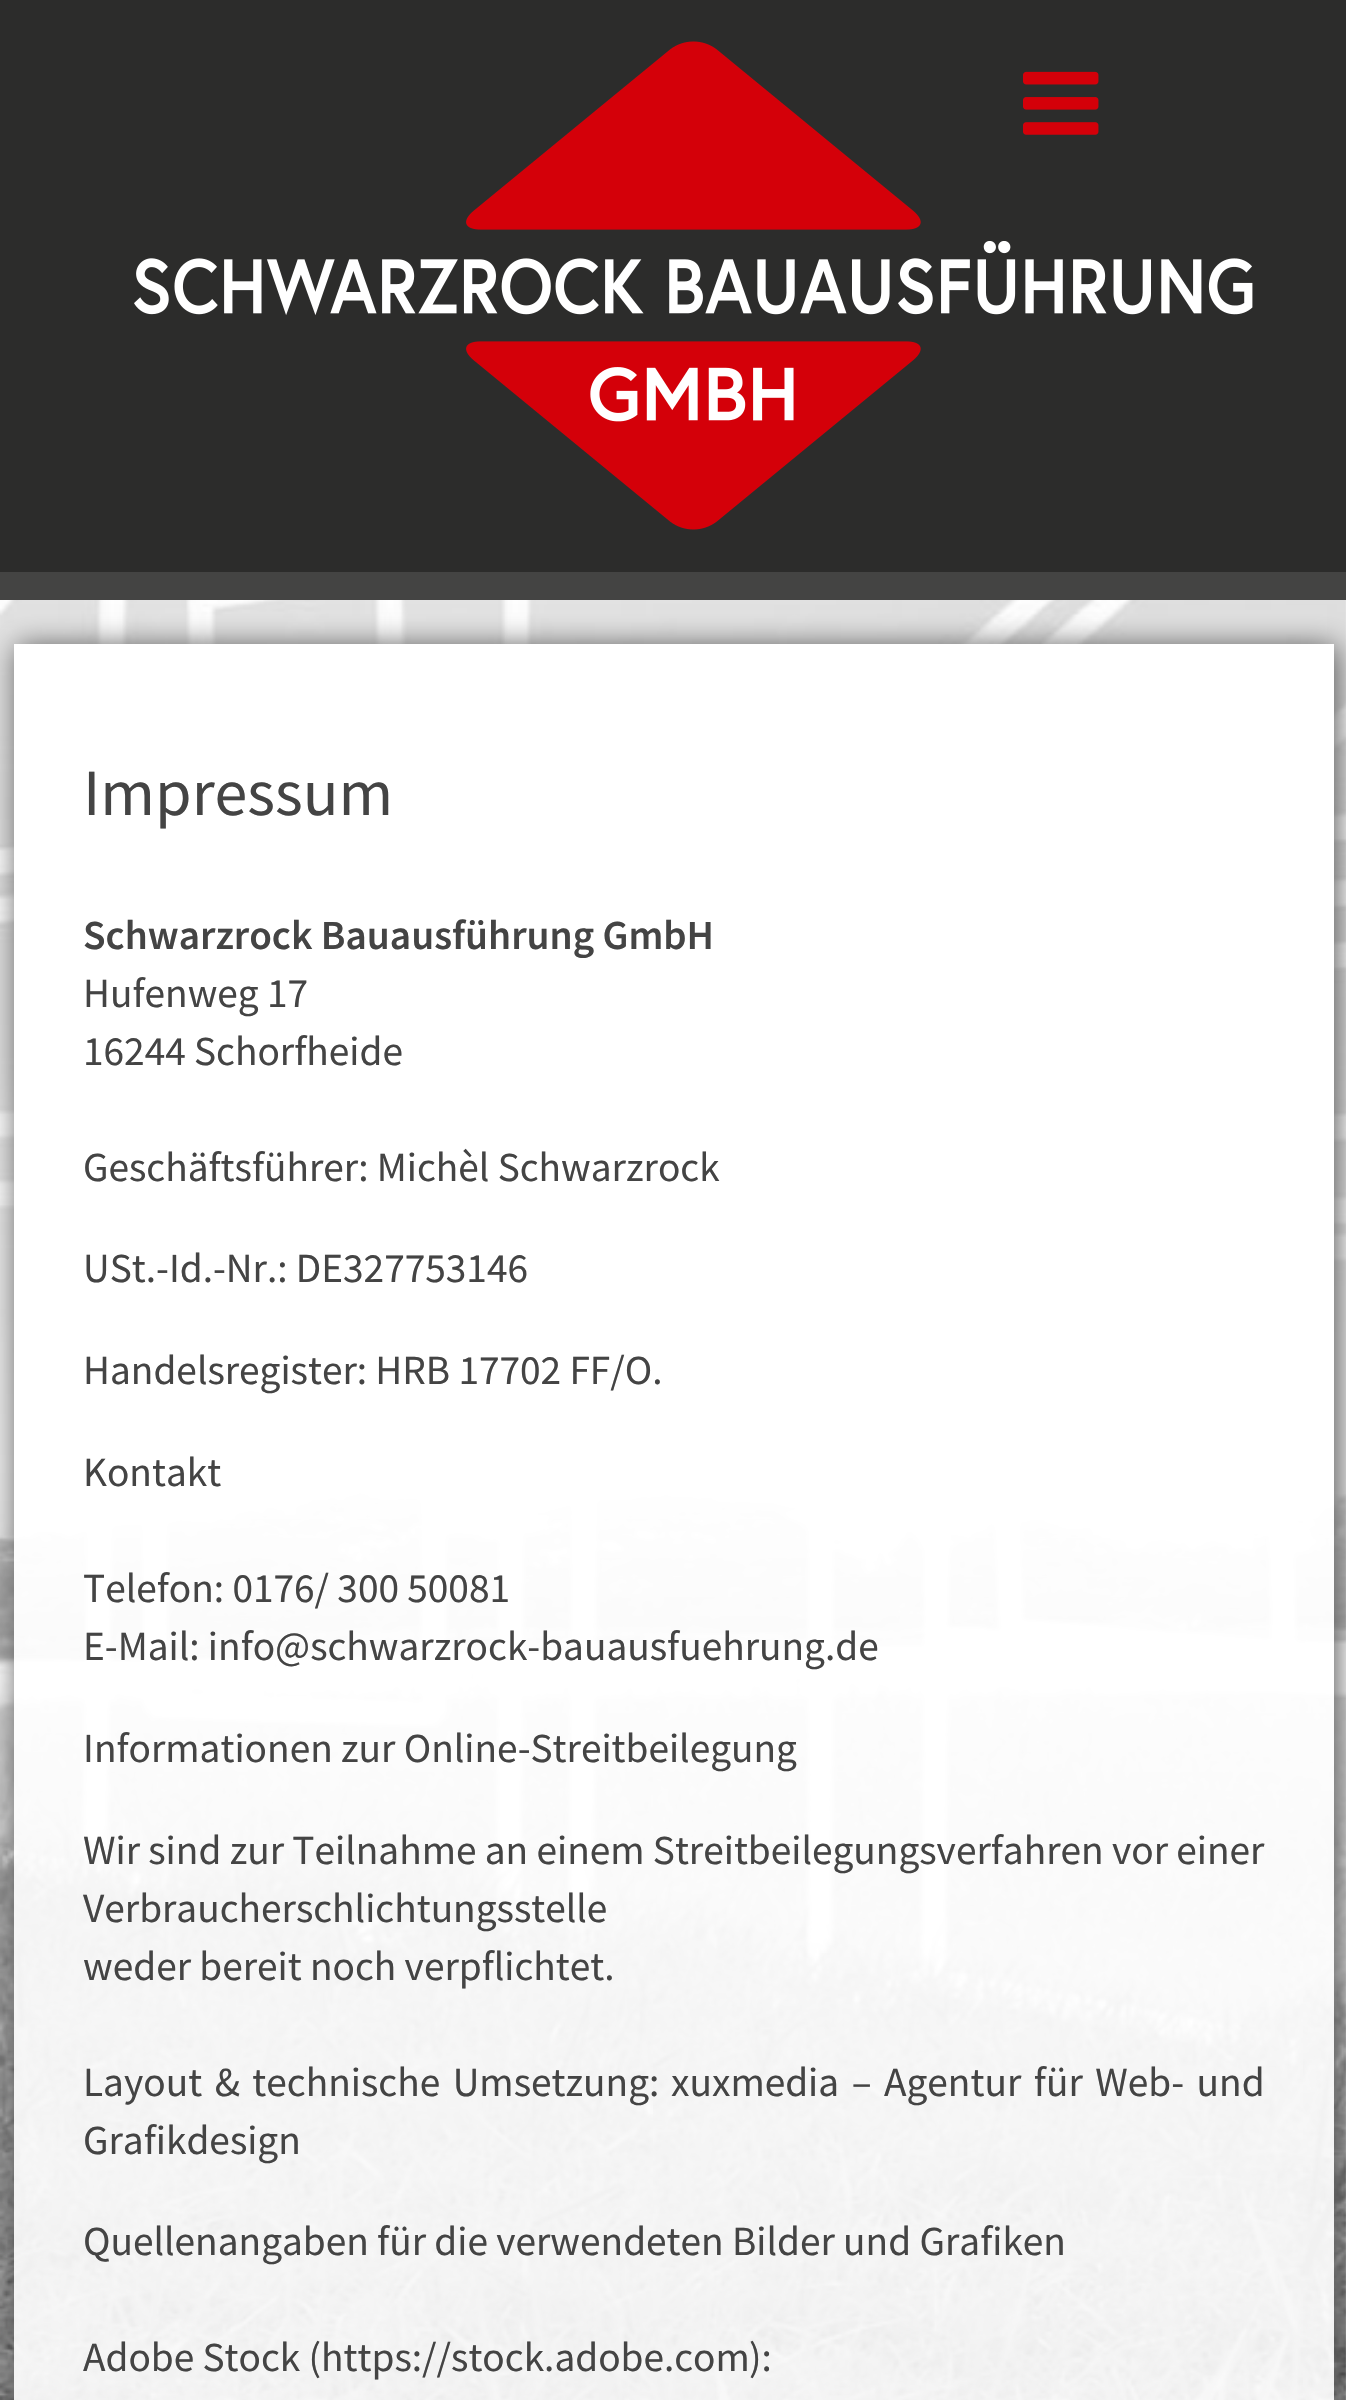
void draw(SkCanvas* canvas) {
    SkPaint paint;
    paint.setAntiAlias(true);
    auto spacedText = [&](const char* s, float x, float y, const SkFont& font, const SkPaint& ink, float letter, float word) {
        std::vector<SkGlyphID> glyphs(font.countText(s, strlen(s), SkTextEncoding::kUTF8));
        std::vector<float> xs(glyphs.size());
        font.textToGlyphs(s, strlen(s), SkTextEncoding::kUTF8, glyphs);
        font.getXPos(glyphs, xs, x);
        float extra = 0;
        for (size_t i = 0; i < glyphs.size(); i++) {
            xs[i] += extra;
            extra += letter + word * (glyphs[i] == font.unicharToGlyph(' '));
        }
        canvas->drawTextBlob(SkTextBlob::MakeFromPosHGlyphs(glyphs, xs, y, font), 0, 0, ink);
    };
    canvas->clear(0xFFFFFFFF);
    paint.setColor(0xFF2C2C2B);
    canvas->drawRect(SkRect::MakeXYWH(0, 0, 1346, 572), paint);
    paint.setColor(0xFF444443);
    canvas->drawRect(SkRect::MakeXYWH(0, 572, 1346, 28), paint);
    canvas->drawImageRect(SkImages::DeferredFromEncodedData(SkData::MakeFromFileName("img1.png")), SkRect::MakeXYWH(134, 41, 1119, 489), SkSamplingOptions());
    canvas->drawImageRect(SkImages::DeferredFromEncodedData(SkData::MakeFromFileName("img2.png")), SkRect::MakeXYWH(1023, 71, 76, 64), SkSamplingOptions());
    canvas->drawImageRect(SkImages::DeferredFromEncodedData(SkData::MakeFromFileName("img3.png")), SkRect::MakeXYWH(0, 600, 1346, 1800), SkSamplingOptions());
    canvas->save();
    canvas->clipPath(SkPathBuilder(SkPathFillType::kEvenOdd).moveTo(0, 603).lineTo(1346, 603).lineTo(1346, 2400).lineTo(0, 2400).close().moveTo(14, 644).lineTo(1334, 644).lineTo(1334, 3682).lineTo(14, 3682).close().detach(), true);
    paint.setColor(0xFF555555);
    paint.setMaskFilter(SkMaskFilter::MakeBlur(kNormal_SkBlurStyle, 14));
    canvas->drawRect(SkRect::MakeXYWH(17, 646, 1320, 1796), paint);
    paint.setMaskFilter(nullptr);
    canvas->restore();
    {
        const SkColor colors[] = {0xFFFFFFFF, 0xFFFFFFFF, 0xE6FFFFFF, 0xE6FFFFFF};
        const float stops[] = {0, 0.24f, 0.4f, 1};
        const SkPoint ends[] = {{674, 644}, {674, 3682}};
        paint.setShader(SkGradientShader::MakeLinear(ends, colors, stops, 4, SkTileMode::kClamp));
        paint.setAlpha(255);
    }
    canvas->drawRect(SkRect::MakeXYWH(14, 644, 1320, 1756), paint);
    SkFont font1(fontMgr->matchFamilyStyle("Source Sans Pro", SkFontStyle::Normal()), 66);
    font1.setSubpixel(true);
    paint.setShader(nullptr);
    paint.setColor(0xFF444444);
    canvas->drawString("Impressum", 83, 815, font1, paint);
    SkFont font2(fontMgr->matchFamilyStyle("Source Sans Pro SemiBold", SkFontStyle(600, SkFontStyle::kNormal_Width, SkFontStyle::kUpright_Slant)), 41.35f);
    font2.setSubpixel(true);
    canvas->drawString("Schwarzrock Bauausführung GmbH", 83, 949, font2, paint);
    SkFont font3(fontMgr->matchFamilyStyle("Source Sans Pro", SkFontStyle::Normal()), 41.35f);
    font3.setSubpixel(true);
    canvas->drawString("Hufenweg 17", 83, 1007, font3, paint);
    canvas->drawString("16244 Schorfheide", 83, 1065, font3, paint);
    canvas->drawString("Geschäftsführer: Michèl Schwarzrock", 83, 1181, font3, paint);
    canvas->drawString("USt.-Id.-Nr.: DE327753146", 83, 1282, font3, paint);
    canvas->drawString("Handelsregister: HRB 17702 FF/O.", 83, 1384, font3, paint);
    canvas->drawString("Kontakt", 83, 1486, font3, paint);
    canvas->drawString("Telefon: 0176/ 300 50081", 83, 1602, font3, paint);
    canvas->drawString("E-Mail: info@schwarzrock-bauausfuehrung.de", 83, 1660, font3, paint);
    canvas->drawString("Informationen zur Online-Streitbeilegung", 83, 1762, font3, paint);
    canvas->drawString("Wir sind zur Teilnahme an einem Streitbeilegungsverfahren vor einer", 83, 1864, font3, paint);
    canvas->drawString("Verbraucherschlichtungsstelle", 83, 1922, font3, paint);
    canvas->drawString("weder bereit noch verpflichtet.", 83, 1980, font3, paint);
    spacedText("Layout & technische Umsetzung:", 83, 2096, font3, paint, 0, 4.25f);
    spacedText("xuxmedia – Agentur für Web- und", 671, 2096, font3, paint, 0, 4.25f);
    canvas->drawString("Grafikdesign", 83, 2154, font3, paint);
    canvas->drawString("Quellenangaben für die verwendeten Bilder und Grafiken", 83, 2255, font3, paint);
    canvas->drawString("Adobe Stock (https://stock.adobe.com", 83, 2371, font3, paint);
    canvas->drawString("):", 749, 2371, font3, paint);
}
